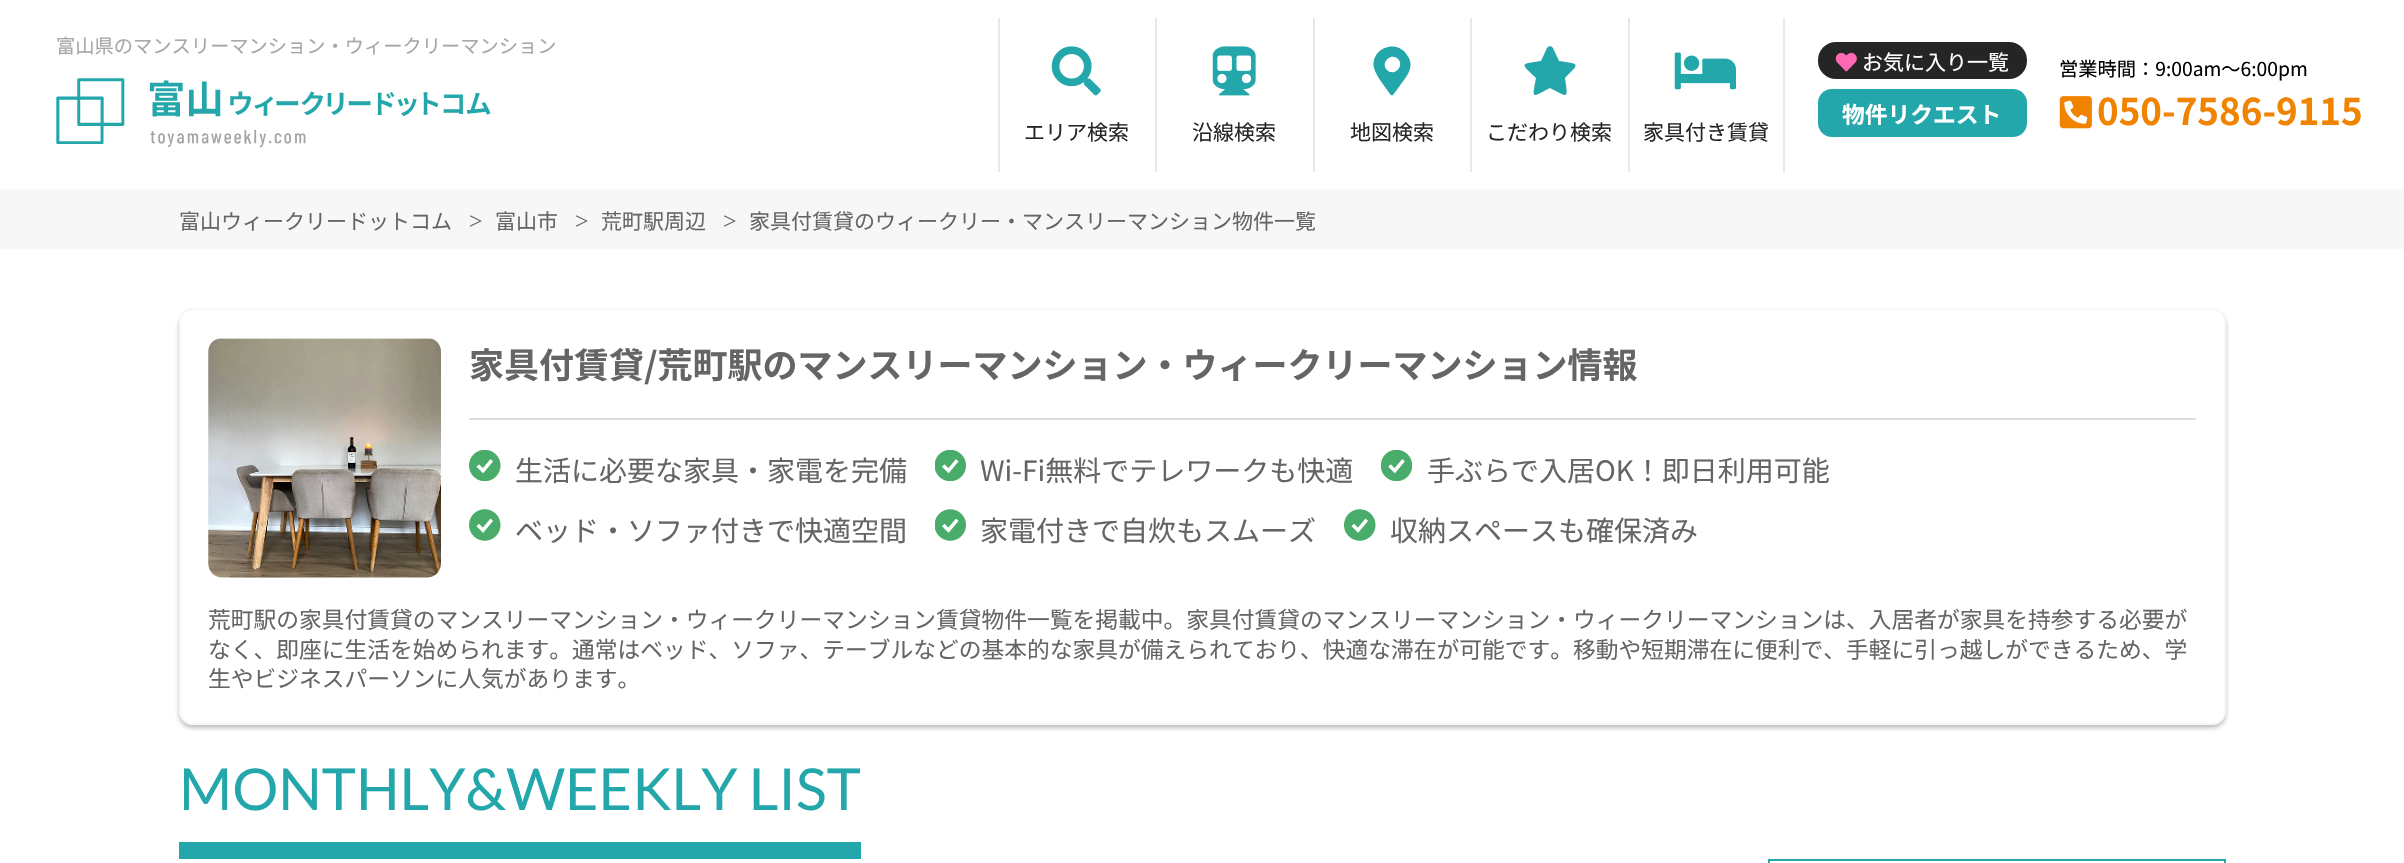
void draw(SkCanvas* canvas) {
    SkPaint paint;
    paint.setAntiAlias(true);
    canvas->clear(0xFFFFFFFF);
    SkFont font1(fontMgr->matchFamilyStyle("Noto Sans JP", SkFontStyle::Normal()), 19.25f);
    font1.setSubpixel(true);
    paint.setColor(0xFFA7A7A7);
    canvas->drawString("富山県のマンスリーマンション・ウィークリーマンション", 56, 53, font1, paint);
    canvas->drawImageRect(SkImages::DeferredFromEncodedData(SkData::MakeFromFileName("img1.png")), SkRect::MakeXYWH(56, 78, 435, 70), SkSamplingOptions());
    paint.setColor(0xFF252525);
    canvas->drawRoundRect(SkRect::MakeXYWH(1818, 42, 209, 37), 18, 18, paint);
    canvas->drawImageRect(SkImages::DeferredFromEncodedData(SkData::MakeFromFileName("img2.png")), SkRect::MakeXYWH(1835, 52, 22, 20), SkSamplingOptions());
    SkFont font2(fontMgr->matchFamilyStyle("Noto Sans JP", SkFontStyle::Normal()), 21);
    font2.setSubpixel(true);
    paint.setColor(0xFFFFFFFF);
    canvas->drawString("お気に入り一覧", 1862, 70, font2, paint);
    paint.setColor(0xFF24A7AB);
    canvas->drawRoundRect(SkRect::MakeXYWH(1818, 89, 209, 48), 14, 14, paint);
    SkFont font3(fontMgr->matchFamilyStyle("Noto Sans JP", SkFontStyle::Bold()), 22.75f);
    font3.setSubpixel(true);
    paint.setColor(0xFFFFFFFF);
    canvas->drawString("物件リクエスト", 1842, 123, font3, paint);
    paint.setColor(0xFF000000);
    canvas->drawString("営業時間：9:00am～6:00pm", 2059, 76, font1, paint);
    canvas->drawImageRect(SkImages::DeferredFromEncodedData(SkData::MakeFromFileName("img3.png")), SkRect::MakeXYWH(2059, 96, 33, 33), SkSamplingOptions());
    SkFont font4(fontMgr->matchFamilyStyle("Noto Sans JP", SkFontStyle::Bold()), 36.75f);
    font4.setSubpixel(true);
    paint.setColor(0xFFF08300);
    canvas->drawString("050-7586-9115", 2097, 125, font4, paint);
    paint.setColor(0xFFE8E8E8);
    canvas->drawRect(SkRect::MakeXYWH(998, 18, 2, 154), paint);
    canvas->drawImageRect(SkImages::DeferredFromEncodedData(SkData::MakeFromFileName("img4.png")), SkRect::MakeXYWH(1051, 46, 50, 50), SkSamplingOptions());
    paint.setColor(0xFF252525);
    canvas->drawString("エリア検索", 1024, 140, font2, paint);
    paint.setColor(0xFFE8E8E8);
    canvas->drawRect(SkRect::MakeXYWH(1155, 18, 2, 154), paint);
    canvas->drawImageRect(SkImages::DeferredFromEncodedData(SkData::MakeFromFileName("img5.png")), SkRect::MakeXYWH(1212, 46, 44, 50), SkSamplingOptions());
    paint.setColor(0xFF252525);
    canvas->drawString("沿線検索", 1192, 140, font2, paint);
    paint.setColor(0xFFE8E8E8);
    canvas->drawRect(SkRect::MakeXYWH(1313, 18, 2, 154), paint);
    paint.setColor(0xFF24A7AB);
    canvas->drawPath(SkPathBuilder().moveTo(1390, 94).cubicTo(1386, 88, 1376, 76, 1374, 68).cubicTo(1370, 49, 1396, 38, 1407, 55).cubicTo(1416, 67, 1406, 77, 1399, 87).lineTo(1393, 95).cubicTo(1392, 96, 1391, 95, 1390, 94).close().moveTo(1387, 70).cubicTo(1394, 77, 1405, 66, 1398, 59).cubicTo(1391, 52, 1380, 63, 1387, 70).close().detach(), paint);
    paint.setColor(0xFF252525);
    canvas->drawString("地図検索", 1350, 140, font2, paint);
    paint.setColor(0xFFE8E8E8);
    canvas->drawRect(SkRect::MakeXYWH(1470, 18, 2, 154), paint);
    paint.setColor(0xFF24A7AB);
    canvas->drawPath(SkPathBuilder().moveTo(1547, 48).cubicTo(1548, 47, 1549, 46, 1550, 46).cubicTo(1551, 46, 1552, 47, 1553, 48).lineTo(1559, 61).cubicTo(1580, 64, 1580, 63, 1565, 78).cubicTo(1568, 99, 1569, 98, 1550, 88).cubicTo(1531, 98, 1532, 99, 1536, 78).cubicTo(1520, 63, 1520, 64, 1541, 61).close().detach(), paint);
    paint.setColor(0xFF252525);
    canvas->drawString("こだわり検索", 1486, 140, font2, paint);
    paint.setColor(0xFFE8E8E8);
    canvas->drawRect(SkRect::MakeXYWH(1783, 18, 2, 154), paint);
    canvas->drawRect(SkRect::MakeXYWH(1628, 18, 2, 154), paint);
    canvas->drawImageRect(SkImages::DeferredFromEncodedData(SkData::MakeFromFileName("img6.png")), SkRect::MakeXYWH(1674, 52, 62, 38), SkSamplingOptions());
    paint.setColor(0xFF252525);
    canvas->drawString("家具付き賃貸", 1643, 140, font2, paint);
    paint.setColor(0xFFF7F7F7);
    canvas->drawRect(SkRect::MakeXYWH(0, 189, 2404, 60), paint);
    paint.setColor(0xFF656565);
    canvas->drawString("富山ウィークリードットコム", 179, 229, font2, paint);
    SkFont font5(fontMgr->matchFamilyStyle("Liberation Serif", SkFontStyle::Normal()), 24);
    font5.setSubpixel(true);
    canvas->drawString(">", 469, 229, font5, paint);
    canvas->drawString("富山市", 495, 229, font2, paint);
    canvas->drawString(">", 575, 229, font5, paint);
    canvas->drawString("荒町駅周辺", 601, 229, font2, paint);
    canvas->drawString(">", 723, 229, font5, paint);
    canvas->drawString("家具付賃貸のウィークリー・マンスリーマンション物件一覧", 749, 229, font2, paint);
    canvas->save();
    canvas->clipPath(SkPathBuilder(SkPathFillType::kEvenOdd).moveTo(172, 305).lineTo(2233, 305).lineTo(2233, 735).lineTo(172, 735).close().moveTo(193, 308).lineTo(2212, 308).cubicTo(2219.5f, 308, 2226, 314.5f, 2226, 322).lineTo(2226, 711).cubicTo(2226, 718.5f, 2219.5f, 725, 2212, 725).lineTo(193, 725).cubicTo(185.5f, 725, 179, 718.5f, 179, 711).lineTo(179, 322).cubicTo(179, 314.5f, 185.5f, 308, 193, 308).close().detach(), true);
    paint.setColor(0x40000000);
    paint.setMaskFilter(SkMaskFilter::MakeBlur(kNormal_SkBlurStyle, 2));
    canvas->drawRoundRect(SkRect::MakeXYWH(179, 312, 2047, 416), 14, 14, paint);
    paint.setMaskFilter(nullptr);
    canvas->restore();
    paint.setStyle(SkPaint::kStroke_Style);
    paint.setStrokeWidth(2);
    paint.setColor(0xFFF7F7F7);
    canvas->drawRoundRect(SkRect::MakeXYWH(180, 309, 2045, 415), 13, 13, paint);
    canvas->drawImageRect(SkImages::DeferredFromEncodedData(SkData::MakeFromFileName("img7.png")), SkRect::MakeXYWH(208, 338, 233, 240), SkSamplingOptions());
    paint.setStyle(SkPaint::kFill_Style);
    paint.setColor(0xFFDEDEDE);
    canvas->drawRect(SkRect::MakeXYWH(469, 418, 1727, 2), paint);
    SkFont font6(fontMgr->matchFamilyStyle("Noto Sans JP", SkFontStyle::Bold()), 35);
    font6.setSubpixel(true);
    paint.setColor(0xFF656565);
    canvas->drawString("家具付賃貸/荒町駅のマンスリーマンション・ウィークリーマンション情報", 469, 378, font6, paint);
    canvas->drawImageRect(SkImages::DeferredFromEncodedData(SkData::MakeFromFileName("img8.png")), SkRect::MakeXYWH(469, 450, 32, 31), SkSamplingOptions());
    SkFont font7(fontMgr->matchFamilyStyle("Noto Sans JP", SkFontStyle::Normal()), 28);
    font7.setSubpixel(true);
    canvas->drawString("生活に必要な家具・家電を完備", 515, 481, font7, paint);
    canvas->drawImageRect(SkImages::DeferredFromEncodedData(SkData::MakeFromFileName("img9.png")), SkRect::MakeXYWH(935, 450, 31, 31), SkSamplingOptions());
    canvas->drawString("Wi-Fi無料でテレワークも快適", 980, 481, font7, paint);
    canvas->drawImageRect(SkImages::DeferredFromEncodedData(SkData::MakeFromFileName("img10.png")), SkRect::MakeXYWH(1381, 450, 31, 31), SkSamplingOptions());
    canvas->drawString("手ぶらで入居OK！即日利用可能", 1427, 481, font7, paint);
    canvas->drawImageRect(SkImages::DeferredFromEncodedData(SkData::MakeFromFileName("img11.png")), SkRect::MakeXYWH(469, 509, 32, 32), SkSamplingOptions());
    canvas->drawString("ベッド・ソファ付きで快適空間", 515, 541, font7, paint);
    canvas->drawImageRect(SkImages::DeferredFromEncodedData(SkData::MakeFromFileName("img12.png")), SkRect::MakeXYWH(935, 509, 31, 32), SkSamplingOptions());
    canvas->drawString("家電付きで自炊もスムーズ", 980, 541, font7, paint);
    canvas->drawImageRect(SkImages::DeferredFromEncodedData(SkData::MakeFromFileName("img11.png")), SkRect::MakeXYWH(1344, 509, 32, 32), SkSamplingOptions());
    canvas->drawString("収納スペースも確保済み", 1390, 541, font7, paint);
    SkFont font8(fontMgr->matchFamilyStyle("Noto Sans JP", SkFontStyle::Normal()), 22.75f);
    font8.setSubpixel(true);
    canvas->drawString("荒町駅の家具付賃貸のマンスリーマンション・ウィークリーマンション賃貸物件一覧を掲載中。家具付賃貸のマンスリーマンション・ウィークリーマンションは、入居者が家具を持参する必要が", 208, 628, font8, paint);
    canvas->drawString("なく、即座に生活を始められます。通常はベッド、ソファ、テーブルなどの基本的な家具が備えられており、快適な滞在が可能です。移動や短期滞在に便利で、手軽に引っ越しができるため、学", 208, 658, font8, paint);
    canvas->drawString("生やビジネスパーソンに人気があります。", 208, 687, font8, paint);
    paint.setColor(0xFF24A7AB);
    canvas->drawRect(SkRect::MakeXYWH(179, 842, 682, 17), paint);
    SkFont font9(fontMgr->matchFamilyStyle("Lato", SkFontStyle::Normal()), 57.75f);
    font9.setSubpixel(true);
    canvas->drawString("MONTHLY&WEEKLY LIST", 179, 810, font9, paint);
    paint.setStyle(SkPaint::kStroke_Style);
    canvas->drawRect(SkRect::MakeXYWH(1769, 860, 456, 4), paint);
}
